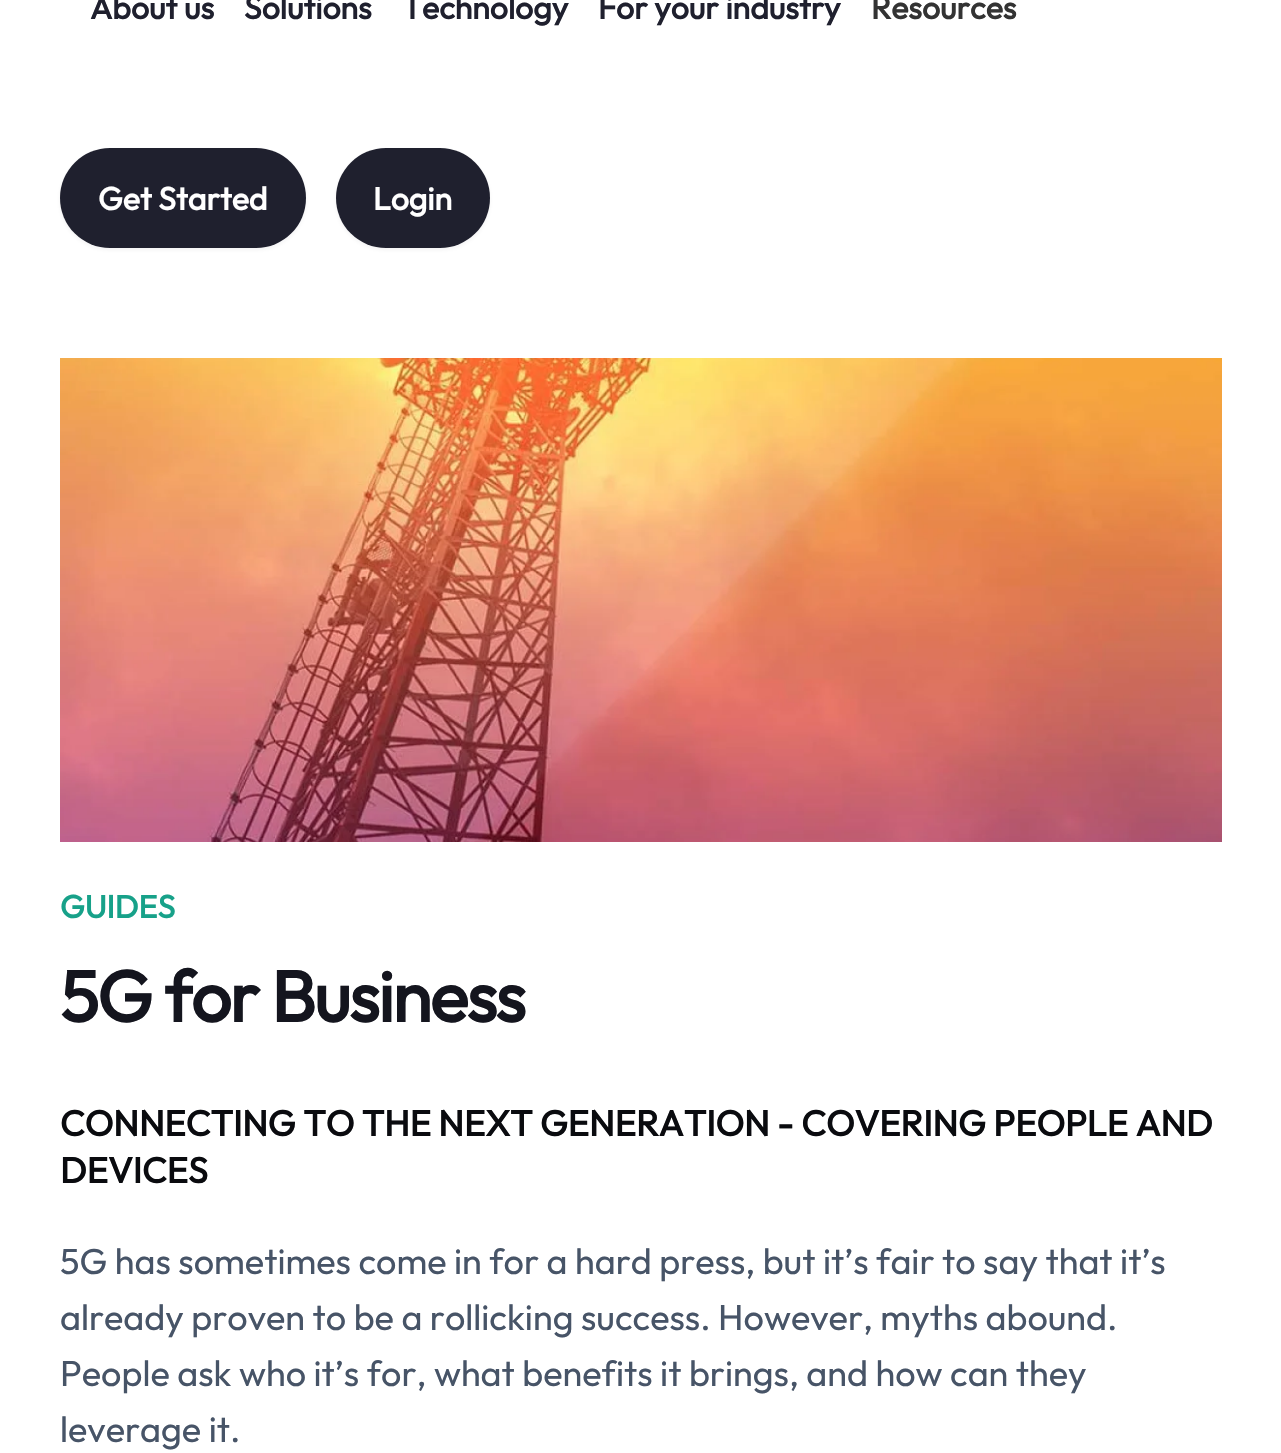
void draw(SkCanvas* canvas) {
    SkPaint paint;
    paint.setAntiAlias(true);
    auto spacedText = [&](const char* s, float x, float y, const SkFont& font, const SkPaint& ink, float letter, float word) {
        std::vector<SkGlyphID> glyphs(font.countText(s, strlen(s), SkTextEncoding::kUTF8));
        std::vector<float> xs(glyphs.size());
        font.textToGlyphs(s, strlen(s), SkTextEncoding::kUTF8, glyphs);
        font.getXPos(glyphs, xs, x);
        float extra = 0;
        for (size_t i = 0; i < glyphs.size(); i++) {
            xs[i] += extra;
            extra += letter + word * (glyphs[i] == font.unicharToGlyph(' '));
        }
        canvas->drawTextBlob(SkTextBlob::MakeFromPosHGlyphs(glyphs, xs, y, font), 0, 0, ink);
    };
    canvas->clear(0xFFFFFFFF);
    SkFont font1(fontMgr->matchFamilyStyle("Outfit", SkFontStyle::Bold()), 32);
    font1.setSubpixel(true);
    paint.setColor(0xFF1F202E);
    canvas->drawString("About us", 90, 19, font1, paint);
    canvas->drawString("Solutions", 244, 19, font1, paint);
    canvas->drawString("Technology", 402, 19, font1, paint);
    canvas->drawString("For your industry", 598, 19, font1, paint);
    paint.setColor(0xFF333333);
    canvas->drawString("Resources", 871, 19, font1, paint);
    paint.setColor(0x0D101828);
    paint.setMaskFilter(SkMaskFilter::MakeBlur(kNormal_SkBlurStyle, 2));
    canvas->drawRoundRect(SkRect::MakeXYWH(60, 150, 246, 100), 50, 50, paint);
    paint.setMaskFilter(nullptr);
    paint.setColor(0xFF1F202E);
    canvas->drawRoundRect(SkRect::MakeXYWH(60, 148, 246, 100), 50, 50, paint);
    paint.setColor(0xFFFFFFFF);
    canvas->drawString("Get Started", 98, 210, font1, paint);
    paint.setColor(0x0D101828);
    paint.setMaskFilter(SkMaskFilter::MakeBlur(kNormal_SkBlurStyle, 2));
    canvas->drawRoundRect(SkRect::MakeXYWH(336, 150, 154, 100), 50, 50, paint);
    paint.setMaskFilter(nullptr);
    paint.setColor(0xFF1F202E);
    canvas->drawRoundRect(SkRect::MakeXYWH(336, 148, 154, 100), 50, 50, paint);
    paint.setColor(0xFFFFFFFF);
    canvas->drawString("Login", 373, 210, font1, paint);
    canvas->drawImageRect(SkImages::DeferredFromEncodedData(SkData::MakeFromFileName("img1.png")), SkRect::MakeXYWH(60, 358, 1162, 484), SkSamplingOptions());
    paint.setColor(0xFF17A189);
    canvas->drawString("GUIDES", 60, 918, font1, paint);
    SkFont font2(fontMgr->matchFamilyStyle("Outfit", SkFontStyle::Bold()), 72);
    font2.setSubpixel(true);
    paint.setColor(0xFF14151E);
    spacedText("5G for Business", 60, 1022, font2, paint, -1.9f, 0);
    SkFont font3(fontMgr->matchFamilyStyle("Outfit", SkFontStyle::Bold()), 36);
    font3.setSubpixel(true);
    paint.setColor(0xFF0A0B0F);
    canvas->drawString("CONNECTING TO THE NEXT GENERATION - COVERING PEOPLE AND", 60, 1136, font3, paint);
    canvas->drawString("DEVICES", 60, 1183, font3, paint);
    SkFont font4(fontMgr->matchFamilyStyle("Outfit", SkFontStyle(100, SkFontStyle::kNormal_Width, SkFontStyle::kUpright_Slant)), 36);
    font4.setSubpixel(true);
    paint.setColor(0xFF475467);
    canvas->drawString("5G has sometimes come in for a hard press, but it’s fair to say that it’s", 60, 1274, font4, paint);
    canvas->drawString("already proven to be a rollicking success. However, myths abound.", 60, 1330, font4, paint);
    canvas->drawString("People ask who it’s for, what benefits it brings, and how can they", 60, 1386, font4, paint);
    canvas->drawString("leverage it.", 60, 1442, font4, paint);
}
